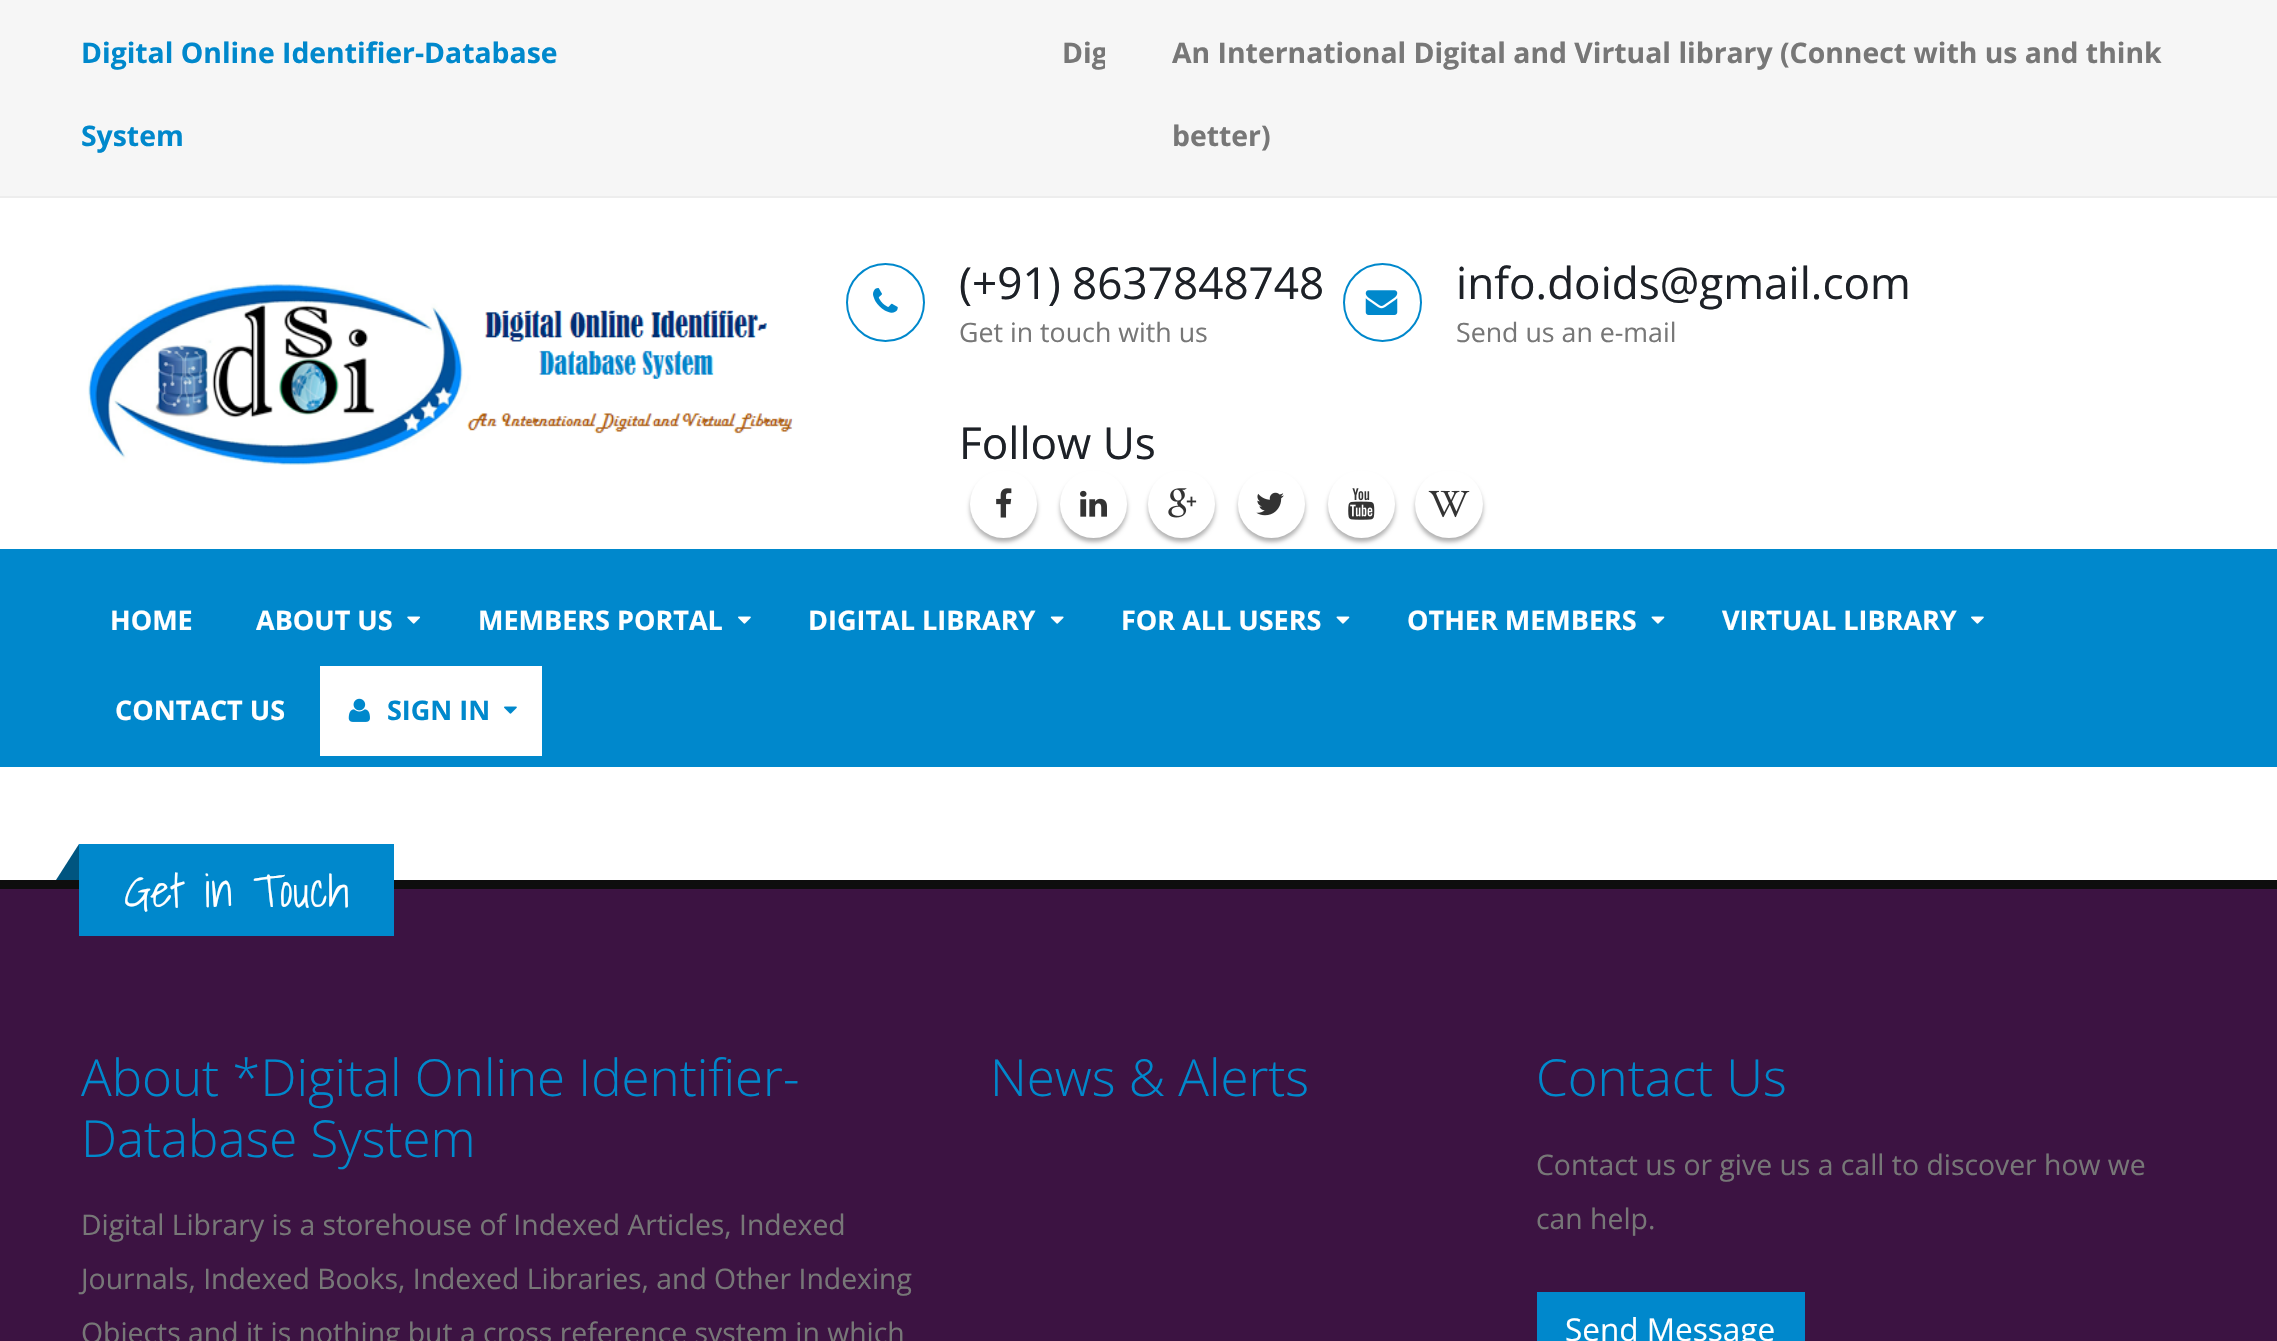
void draw(SkCanvas* canvas) {
    SkPaint paint;
    paint.setAntiAlias(true);
    canvas->clear(0xFFFFFFFF);
    paint.setColor(0xFFF6F6F6);
    canvas->drawRect(SkRect::MakeXYWH(0, 0, 2277, 196), paint);
    paint.setColor(0xFFEDEDED);
    canvas->drawRect(SkRect::MakeXYWH(0, 196, 2277, 2), paint);
    SkFont font1(fontMgr->matchFamilyStyle("Open Sans", SkFontStyle::Bold()), 28.35f);
    font1.setSubpixel(true);
    paint.setColor(0xFF0088CC);
    canvas->drawString("Digital Online Identifier-Database", 81, 63, font1, paint);
    canvas->drawString("System", 81, 146, font1, paint);
    canvas->save();
    canvas->clipRect(SkRect::MakeXYWH(628, 11, 477, 84));
    paint.setColor(0xFF777777);
    canvas->drawString("Dig", 1062, 63, font1, paint);
    canvas->restore();
    canvas->drawString("An International Digital and Virtual library (Connect with us and think", 1172, 63, font1, paint);
    canvas->drawString("better)", 1172, 146, font1, paint);
    canvas->drawImageRect(SkImages::DeferredFromEncodedData(SkData::MakeFromFileName("img1.png")), SkRect::MakeXYWH(88, 282, 706, 184), SkSamplingOptions());
    paint.setStyle(SkPaint::kStroke_Style);
    paint.setStrokeWidth(2);
    paint.setColor(0xFF0088CC);
    canvas->drawCircle(885.5f, 302.5f, 38.5f, paint);
    canvas->drawImageRect(SkImages::DeferredFromEncodedData(SkData::MakeFromFileName("img2.png")), SkRect::MakeXYWH(873, 288, 25, 25), SkSamplingOptions());
    SkFont font2(fontMgr->matchFamilyStyle("Open Sans", SkFontStyle::Normal()), 44.1f);
    font2.setSubpixel(true);
    paint.setStyle(SkPaint::kFill_Style);
    paint.setColor(0xFF1D2127);
    canvas->drawString("(+91) 8637848748", 959, 299, font2, paint);
    SkFont font3(fontMgr->matchFamilyStyle("Open Sans", SkFontStyle::Normal()), 26.75f);
    font3.setSubpixel(true);
    paint.setColor(0xFF777777);
    canvas->drawString("Get in touch with us", 959, 342, font3, paint);
    paint.setStyle(SkPaint::kStroke_Style);
    paint.setColor(0xFF0088CC);
    canvas->drawCircle(1382.5f, 302.5f, 38.5f, paint);
    canvas->drawImageRect(SkImages::DeferredFromEncodedData(SkData::MakeFromFileName("img3.png")), SkRect::MakeXYWH(1365, 290, 33, 25), SkSamplingOptions());
    paint.setStyle(SkPaint::kFill_Style);
    paint.setColor(0xFF1D2127);
    canvas->drawString("info.doids@gmail.com", 1456, 299, font2, paint);
    paint.setColor(0xFF777777);
    canvas->drawString("Send us an e-mail", 1456, 342, font3, paint);
    paint.setColor(0xFF1D2127);
    canvas->drawString("Follow Us", 959, 459, font2, paint);
    paint.setColor(0x4D000000);
    paint.setMaskFilter(SkMaskFilter::MakeBlur(kNormal_SkBlurStyle, 2));
    canvas->drawRoundRect(SkRect::MakeXYWH(970, 475, 67, 67), 33.5f, 33.5f, paint);
    paint.setMaskFilter(nullptr);
    paint.setColor(0xFFFFFFFF);
    canvas->drawRoundRect(SkRect::MakeXYWH(970, 470, 67, 68), 33.5f, 33.5f, paint);
    canvas->drawImageRect(SkImages::DeferredFromEncodedData(SkData::MakeFromFileName("img4.png")), SkRect::MakeXYWH(996, 488, 16, 30), SkSamplingOptions());
    paint.setColor(0x4D000000);
    paint.setMaskFilter(SkMaskFilter::MakeBlur(kNormal_SkBlurStyle, 2));
    canvas->drawRoundRect(SkRect::MakeXYWH(1060, 475, 67, 67), 33.5f, 33.5f, paint);
    paint.setMaskFilter(nullptr);
    paint.setColor(0xFFFFFFFF);
    canvas->drawRoundRect(SkRect::MakeXYWH(1060, 470, 67, 68), 33.5f, 33.5f, paint);
    canvas->drawImageRect(SkImages::DeferredFromEncodedData(SkData::MakeFromFileName("img5.png")), SkRect::MakeXYWH(1080, 490, 27, 27), SkSamplingOptions());
    paint.setColor(0x4D000000);
    paint.setMaskFilter(SkMaskFilter::MakeBlur(kNormal_SkBlurStyle, 2));
    canvas->drawRoundRect(SkRect::MakeXYWH(1148, 475, 67, 67), 33.5f, 33.5f, paint);
    paint.setMaskFilter(nullptr);
    paint.setColor(0xFFFFFFFF);
    canvas->drawRoundRect(SkRect::MakeXYWH(1148, 470, 67, 68), 33.5f, 33.5f, paint);
    canvas->drawImageRect(SkImages::DeferredFromEncodedData(SkData::MakeFromFileName("img6.png")), SkRect::MakeXYWH(1168, 488, 29, 30), SkSamplingOptions());
    paint.setColor(0x4D000000);
    paint.setMaskFilter(SkMaskFilter::MakeBlur(kNormal_SkBlurStyle, 2));
    canvas->drawRoundRect(SkRect::MakeXYWH(1238, 475, 67, 67), 33.5f, 33.5f, paint);
    paint.setMaskFilter(nullptr);
    paint.setColor(0xFFFFFFFF);
    canvas->drawRoundRect(SkRect::MakeXYWH(1238, 470, 67, 68), 33.5f, 33.5f, paint);
    canvas->drawImageRect(SkImages::DeferredFromEncodedData(SkData::MakeFromFileName("img7.png")), SkRect::MakeXYWH(1256, 492, 28, 24), SkSamplingOptions());
    paint.setColor(0x4D000000);
    paint.setMaskFilter(SkMaskFilter::MakeBlur(kNormal_SkBlurStyle, 2));
    canvas->drawRoundRect(SkRect::MakeXYWH(1328, 475, 67, 67), 33.5f, 33.5f, paint);
    paint.setMaskFilter(nullptr);
    paint.setColor(0xFFFFFFFF);
    canvas->drawRoundRect(SkRect::MakeXYWH(1328, 470, 67, 68), 33.5f, 33.5f, paint);
    canvas->drawImageRect(SkImages::DeferredFromEncodedData(SkData::MakeFromFileName("img8.png")), SkRect::MakeXYWH(1348, 488, 27, 32), SkSamplingOptions());
    paint.setColor(0x4D000000);
    paint.setMaskFilter(SkMaskFilter::MakeBlur(kNormal_SkBlurStyle, 2));
    canvas->drawRoundRect(SkRect::MakeXYWH(1415, 475, 68, 67), 33.5f, 33.5f, paint);
    paint.setMaskFilter(nullptr);
    paint.setColor(0xFFFFFFFF);
    canvas->drawCircle(1449, 504, 34, paint);
    canvas->drawImageRect(SkImages::DeferredFromEncodedData(SkData::MakeFromFileName("img9.png")), SkRect::MakeXYWH(1428, 490, 42, 28), SkSamplingOptions());
    paint.setColor(0xFF0088CC);
    canvas->drawRect(SkRect::MakeXYWH(0, 549, 2277, 218), paint);
    SkFont font4(fontMgr->matchFamilyStyle("Open Sans", SkFontStyle::Bold()), 27);
    font4.setSubpixel(true);
    paint.setColor(0xFFFFFFFF);
    canvas->drawString("HOME", 110, 630, font4, paint);
    canvas->drawString("ABOUT US", 256, 630, font4, paint);
    canvas->drawImageRect(SkImages::DeferredFromEncodedData(SkData::MakeFromFileName("img10.png")), SkRect::MakeXYWH(407, 616, 14, 8), SkSamplingOptions());
    canvas->drawString("MEMBERS PORTAL", 478, 630, font4, paint);
    canvas->drawImageRect(SkImages::DeferredFromEncodedData(SkData::MakeFromFileName("img11.png")), SkRect::MakeXYWH(738, 616, 13, 8), SkSamplingOptions());
    canvas->drawString("DIGITAL LIBRARY", 808, 630, font4, paint);
    canvas->drawImageRect(SkImages::DeferredFromEncodedData(SkData::MakeFromFileName("img12.png")), SkRect::MakeXYWH(1050, 616, 14, 8), SkSamplingOptions());
    canvas->drawString("FOR ALL USERS", 1121, 630, font4, paint);
    canvas->drawImageRect(SkImages::DeferredFromEncodedData(SkData::MakeFromFileName("img13.png")), SkRect::MakeXYWH(1336, 616, 14, 8), SkSamplingOptions());
    canvas->drawString("OTHER MEMBERS", 1407, 630, font4, paint);
    canvas->drawImageRect(SkImages::DeferredFromEncodedData(SkData::MakeFromFileName("img13.png")), SkRect::MakeXYWH(1651, 616, 14, 8), SkSamplingOptions());
    canvas->drawString("VIRTUAL LIBRARY", 1722, 630, font4, paint);
    canvas->drawImageRect(SkImages::DeferredFromEncodedData(SkData::MakeFromFileName("img11.png")), SkRect::MakeXYWH(1971, 616, 13, 8), SkSamplingOptions());
    canvas->drawString("CONTACT US", 115, 720, font4, paint);
    canvas->drawRect(SkRect::MakeXYWH(320, 666, 222, 90), paint);
    canvas->drawImageRect(SkImages::DeferredFromEncodedData(SkData::MakeFromFileName("img14.png")), SkRect::MakeXYWH(348, 698, 22, 24), SkSamplingOptions());
    paint.setColor(0xFF0088CC);
    canvas->drawString("SIGN IN", 387, 720, font4, paint);
    canvas->drawImageRect(SkImages::DeferredFromEncodedData(SkData::MakeFromFileName("img15.png")), SkRect::MakeXYWH(504, 706, 13, 8), SkSamplingOptions());
    paint.setColor(0xFF3C1342);
    canvas->drawRect(SkRect::MakeXYWH(0, 889, 2277, 452), paint);
    paint.setColor(0xFF0E0E0E);
    canvas->drawRect(SkRect::MakeXYWH(0, 880, 2277, 9), paint);
    paint.setColor(0xFF0088CC);
    canvas->drawRect(SkRect::MakeXYWH(79, 844, 315, 92), paint);
    paint.setColor(0xFF005580);
    canvas->drawPath(SkPathBuilder().moveTo(79, 844).lineTo(79, 880).lineTo(56, 880).close().detach(), paint);
    SkFont font5(fontMgr->matchFamilyStyle("Shadows Into Light", SkFontStyle::Normal()), 45.5f);
    font5.setSubpixel(true);
    paint.setColor(0xFFFFFFFF);
    canvas->drawString("Get in Touch", 124, 907, font5, paint);
    SkFont font6(fontMgr->matchFamilyStyle("Open Sans", SkFontStyle(300, SkFontStyle::kNormal_Width, SkFontStyle::kUpright_Slant)), 51);
    font6.setSubpixel(true);
    paint.setColor(0xFF0088CC);
    canvas->drawString("About *Digital Online Identifier-", 81, 1096, font6, paint);
    canvas->drawString("Database System", 81, 1157, font6, paint);
    SkFont font7(fontMgr->matchFamilyStyle("Open Sans", SkFontStyle::Normal()), 28.35f);
    font7.setSubpixel(true);
    paint.setColor(0xFF777777);
    canvas->drawString("Digital Library is a storehouse of Indexed Articles, Indexed", 81, 1235, font7, paint);
    canvas->drawString("Journals, Indexed Books, Indexed Libraries, and Other Indexing", 81, 1289, font7, paint);
    canvas->drawString("Objects and it is nothing but a cross reference system in which", 81, 1343, font7, paint);
    paint.setColor(0xFF0088CC);
    canvas->drawString("News & Alerts", 990, 1096, font6, paint);
    canvas->drawString("Contact Us", 1536, 1096, font6, paint);
    paint.setColor(0xFF777777);
    canvas->drawString("Contact us or give us a call to discover how we", 1536, 1175, font7, paint);
    canvas->drawString("can help.", 1536, 1229, font7, paint);
    paint.setColor(0xFF0088CC);
    canvas->drawRect(SkRect::MakeXYWH(1537, 1292, 268, 49), paint);
    SkFont font8(fontMgr->matchFamilyStyle("Open Sans", SkFontStyle::Normal()), 31.5f);
    font8.setSubpixel(true);
    paint.setColor(0xFFFFFFFF);
    canvas->drawString("Send Message", 1565, 1341, font8, paint);
}
